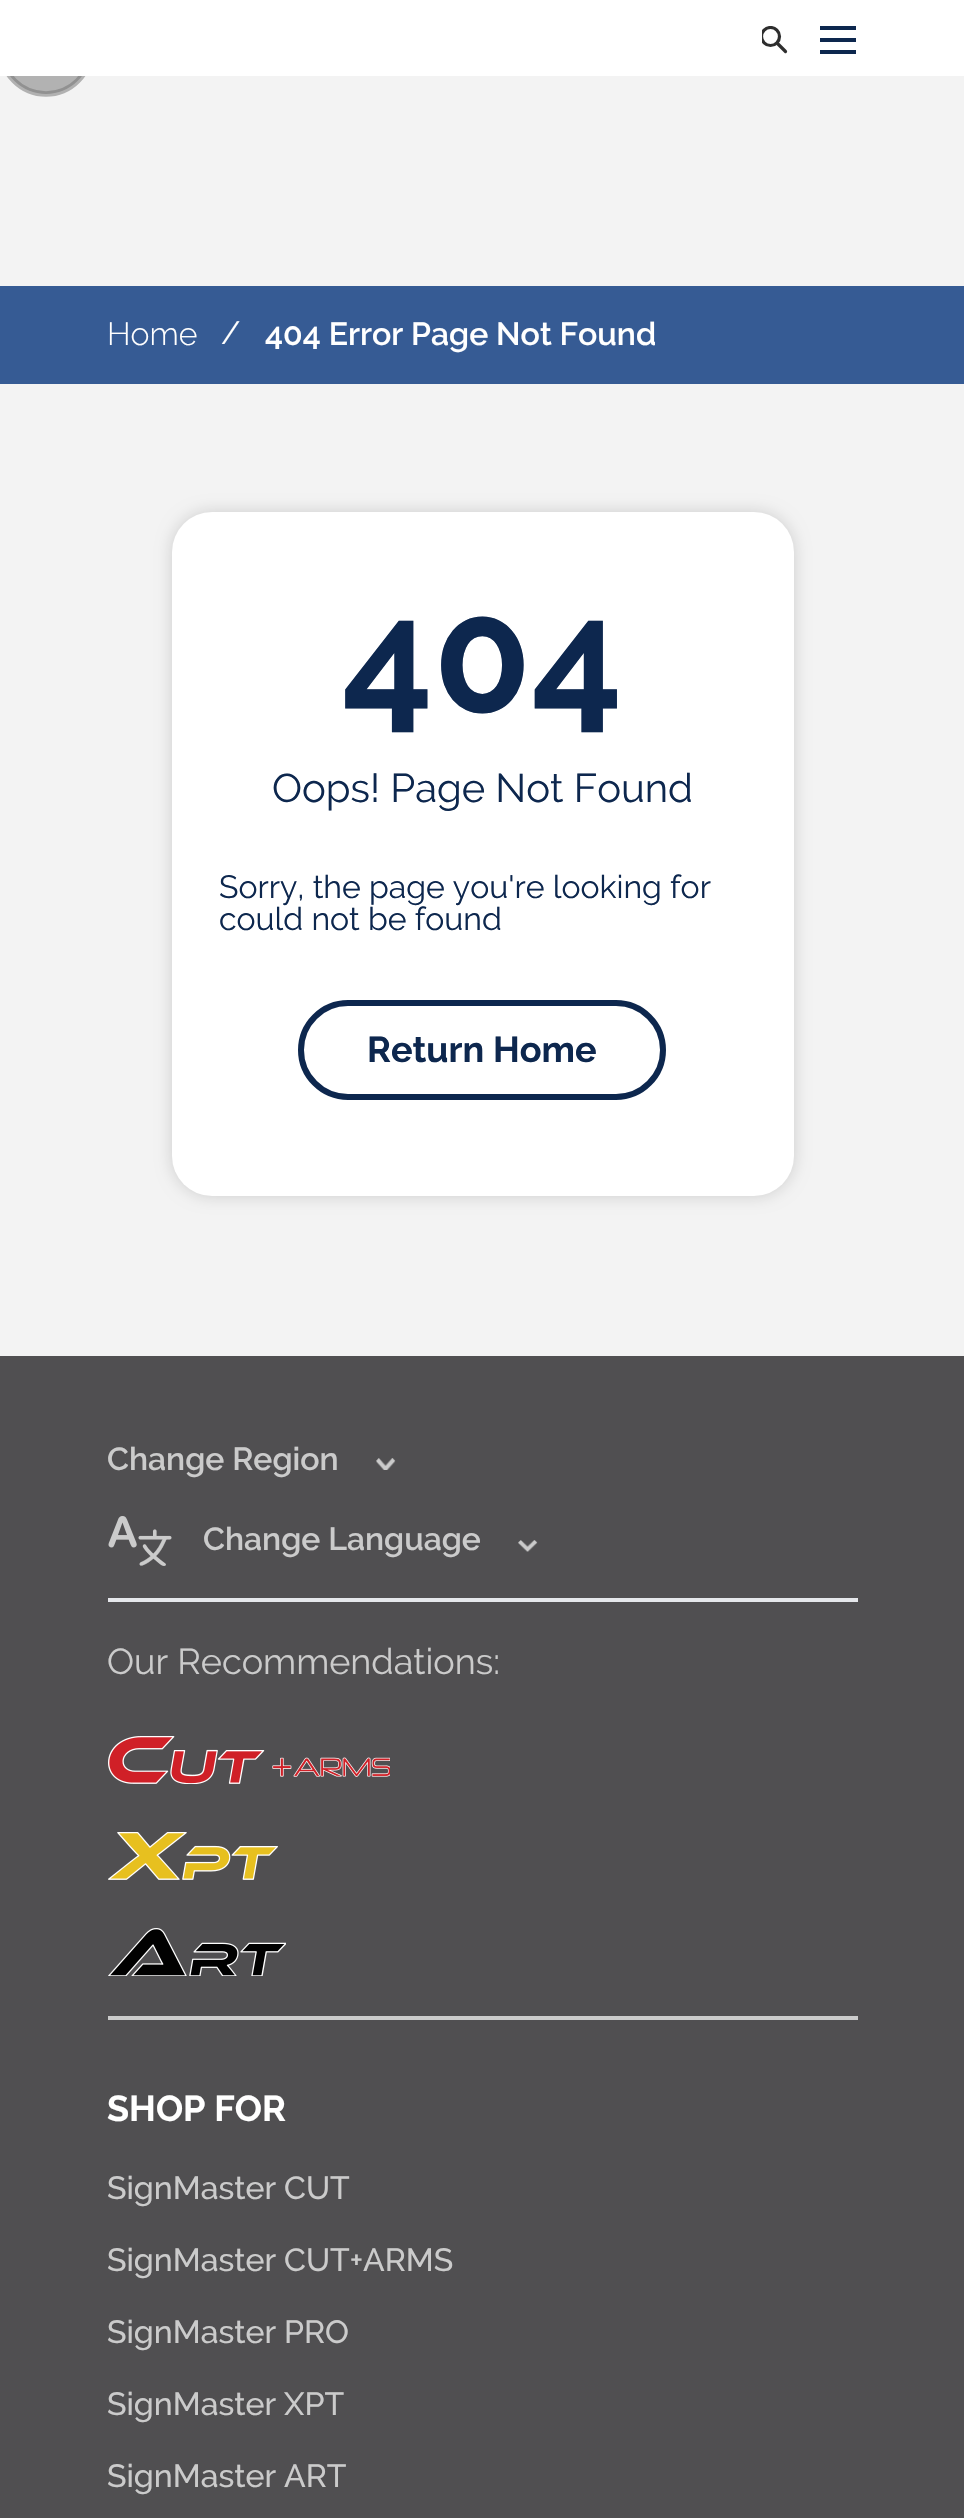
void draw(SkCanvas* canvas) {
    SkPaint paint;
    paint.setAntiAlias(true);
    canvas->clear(0xFFF3F3F3);
    paint.setColor(0xFFB2B2B2);
    canvas->drawCircle(46, 49, 45, paint);
    paint.setStyle(SkPaint::kStroke_Style);
    paint.setStrokeWidth(5.6f);
    paint.setColor(0x80707070);
    canvas->drawCircle(46, 49, 45, paint);
    paint.setStyle(SkPaint::kFill_Style);
    paint.setColor(0xFFFFFFFF);
    canvas->drawRect(SkRect::MakeXYWH(0, 0, 964, 76), paint);
    canvas->save();
    canvas->clipRect(SkRect::MakeXYWH(762, 26, 26, 28));
    paint.setStyle(SkPaint::kStroke_Style);
    paint.setStrokeWidth(3.2f);
    paint.setColor(0xFF2E2E2E);
    canvas->drawCircle(770.5f, 36.5f, 9, paint);
    canvas->restore();
    paint.setStrokeCap(SkPaint::kRound_Cap);
    canvas->drawPath(SkPathBuilder().moveTo(777.5f, 43.5f).lineTo(785.5f, 51.5f).detach(), paint);
    paint.setStyle(SkPaint::kFill_Style);
    paint.setColor(0xFF0D274E);
    canvas->drawRect(SkRect::MakeXYWH(820, 26, 36, 4), paint);
    canvas->drawRect(SkRect::MakeXYWH(820, 38, 36, 4), paint);
    canvas->drawRect(SkRect::MakeXYWH(820, 50, 36, 4), paint);
    paint.setColor(0xFF365B94);
    canvas->drawRect(SkRect::MakeXYWH(0, 286, 964, 98), paint);
    SkFont font1(fontMgr->matchFamilyStyle("Raleway", SkFontStyle(300, SkFontStyle::kNormal_Width, SkFontStyle::kUpright_Slant)), 32);
    font1.setSubpixel(true);
    paint.setColor(0xFFFFFFFF);
    canvas->drawString("Home", 107, 345, font1, paint);
    SkFont font2(fontMgr->matchFamilyStyle("Raleway", SkFontStyle::Normal()), 32);
    font2.setSubpixel(true);
    canvas->drawString("/", 221, 344, font2, paint);
    SkFont font3(fontMgr->matchFamilyStyle("Raleway", SkFontStyle(600, SkFontStyle::kNormal_Width, SkFontStyle::kUpright_Slant)), 32);
    font3.setSubpixel(true);
    canvas->drawString("404 Error Page Not Found", 265, 345, font3, paint);
    paint.setColor(0x29000000);
    paint.setMaskFilter(SkMaskFilter::MakeBlur(kNormal_SkBlurStyle, 8));
    canvas->drawRoundRect(SkRect::MakeXYWH(172, 512, 622, 684), 40, 40, paint);
    paint.setMaskFilter(nullptr);
    paint.setColor(0xFFFFFFFF);
    canvas->drawRoundRect(SkRect::MakeXYWH(172, 512, 622, 684), 40, 40, paint);
    SkFont font4(fontMgr->matchFamilyStyle("Raleway", SkFontStyle::Bold()), 160);
    font4.setSubpixel(true);
    paint.setColor(0xFF0D274E);
    canvas->drawString("404", 342, 712, font4, paint);
    SkFont font5(fontMgr->matchFamilyStyle("Raleway", SkFontStyle::Normal()), 40);
    font5.setSubpixel(true);
    canvas->drawString("Oops! Page Not Found", 272, 802, font5, paint);
    canvas->drawString("Sorry, the page you're looking for", 219, 898, font2, paint);
    canvas->drawString("could not be found", 219, 930, font2, paint);
    paint.setStyle(SkPaint::kStroke_Style);
    paint.setStrokeWidth(6);
    paint.setStrokeCap(SkPaint::kButt_Cap);
    canvas->drawRoundRect(SkRect::MakeXYWH(301, 1003, 362, 94), 47, 47, paint);
    SkFont font6(fontMgr->matchFamilyStyle("Raleway", SkFontStyle::Bold()), 36);
    font6.setSubpixel(true);
    paint.setStyle(SkPaint::kFill_Style);
    canvas->drawString("Return Home", 367, 1062, font6, paint);
    paint.setColor(0xFF504F51);
    canvas->drawRect(SkRect::MakeXYWH(0, 1356, 964, 1162), paint);
    paint.setColor(0xFFCBCBCB);
    canvas->drawString("Change Region", 107, 1470, font3, paint);
    canvas->drawImageRect(SkImages::DeferredFromEncodedData(SkData::MakeFromFileName("img1.png")), SkRect::MakeXYWH(376, 1458, 20, 12), SkSamplingOptions());
    canvas->drawImageRect(SkImages::DeferredFromEncodedData(SkData::MakeFromFileName("img2.png")), SkRect::MakeXYWH(108, 1516, 64, 50), SkSamplingOptions());
    canvas->drawString("Change Language", 203, 1550, font3, paint);
    canvas->drawImageRect(SkImages::DeferredFromEncodedData(SkData::MakeFromFileName("img3.png")), SkRect::MakeXYWH(518, 1540, 20, 12), SkSamplingOptions());
    paint.setColor(0xFFE5E7EB);
    canvas->drawRect(SkRect::MakeXYWH(108, 1598, 750, 4), paint);
    SkFont font7(fontMgr->matchFamilyStyle("Raleway", SkFontStyle::Normal()), 36);
    font7.setSubpixel(true);
    paint.setColor(0xFFCBCBCB);
    canvas->drawString("Our Recommendations:", 107, 1674, font7, paint);
    canvas->drawImageRect(SkImages::DeferredFromEncodedData(SkData::MakeFromFileName("img4.png")), SkRect::MakeXYWH(108, 1736, 282, 48), SkSamplingOptions());
    canvas->drawImageRect(SkImages::DeferredFromEncodedData(SkData::MakeFromFileName("img5.png")), SkRect::MakeXYWH(108, 1832, 170, 48), SkSamplingOptions());
    canvas->drawImageRect(SkImages::DeferredFromEncodedData(SkData::MakeFromFileName("img6.png")), SkRect::MakeXYWH(108, 1928, 178, 48), SkSamplingOptions());
    canvas->drawRect(SkRect::MakeXYWH(108, 2016, 750, 4), paint);
    paint.setColor(0xFFFFFFFF);
    canvas->drawString("SHOP FOR", 107, 2121, font6, paint);
    SkFont font8(fontMgr->matchFamilyStyle("Raleway", SkFontStyle(500, SkFontStyle::kNormal_Width, SkFontStyle::kUpright_Slant)), 32);
    font8.setSubpixel(true);
    paint.setColor(0xFFCBCBCB);
    canvas->drawString("SignMaster CUT", 107, 2199, font8, paint);
    canvas->drawString("SignMaster CUT+ARMS", 107, 2271, font8, paint);
    canvas->drawString("SignMaster PRO", 107, 2343, font8, paint);
    canvas->drawString("SignMaster XPT", 107, 2415, font8, paint);
    canvas->drawString("SignMaster ART", 107, 2487, font8, paint);
}
